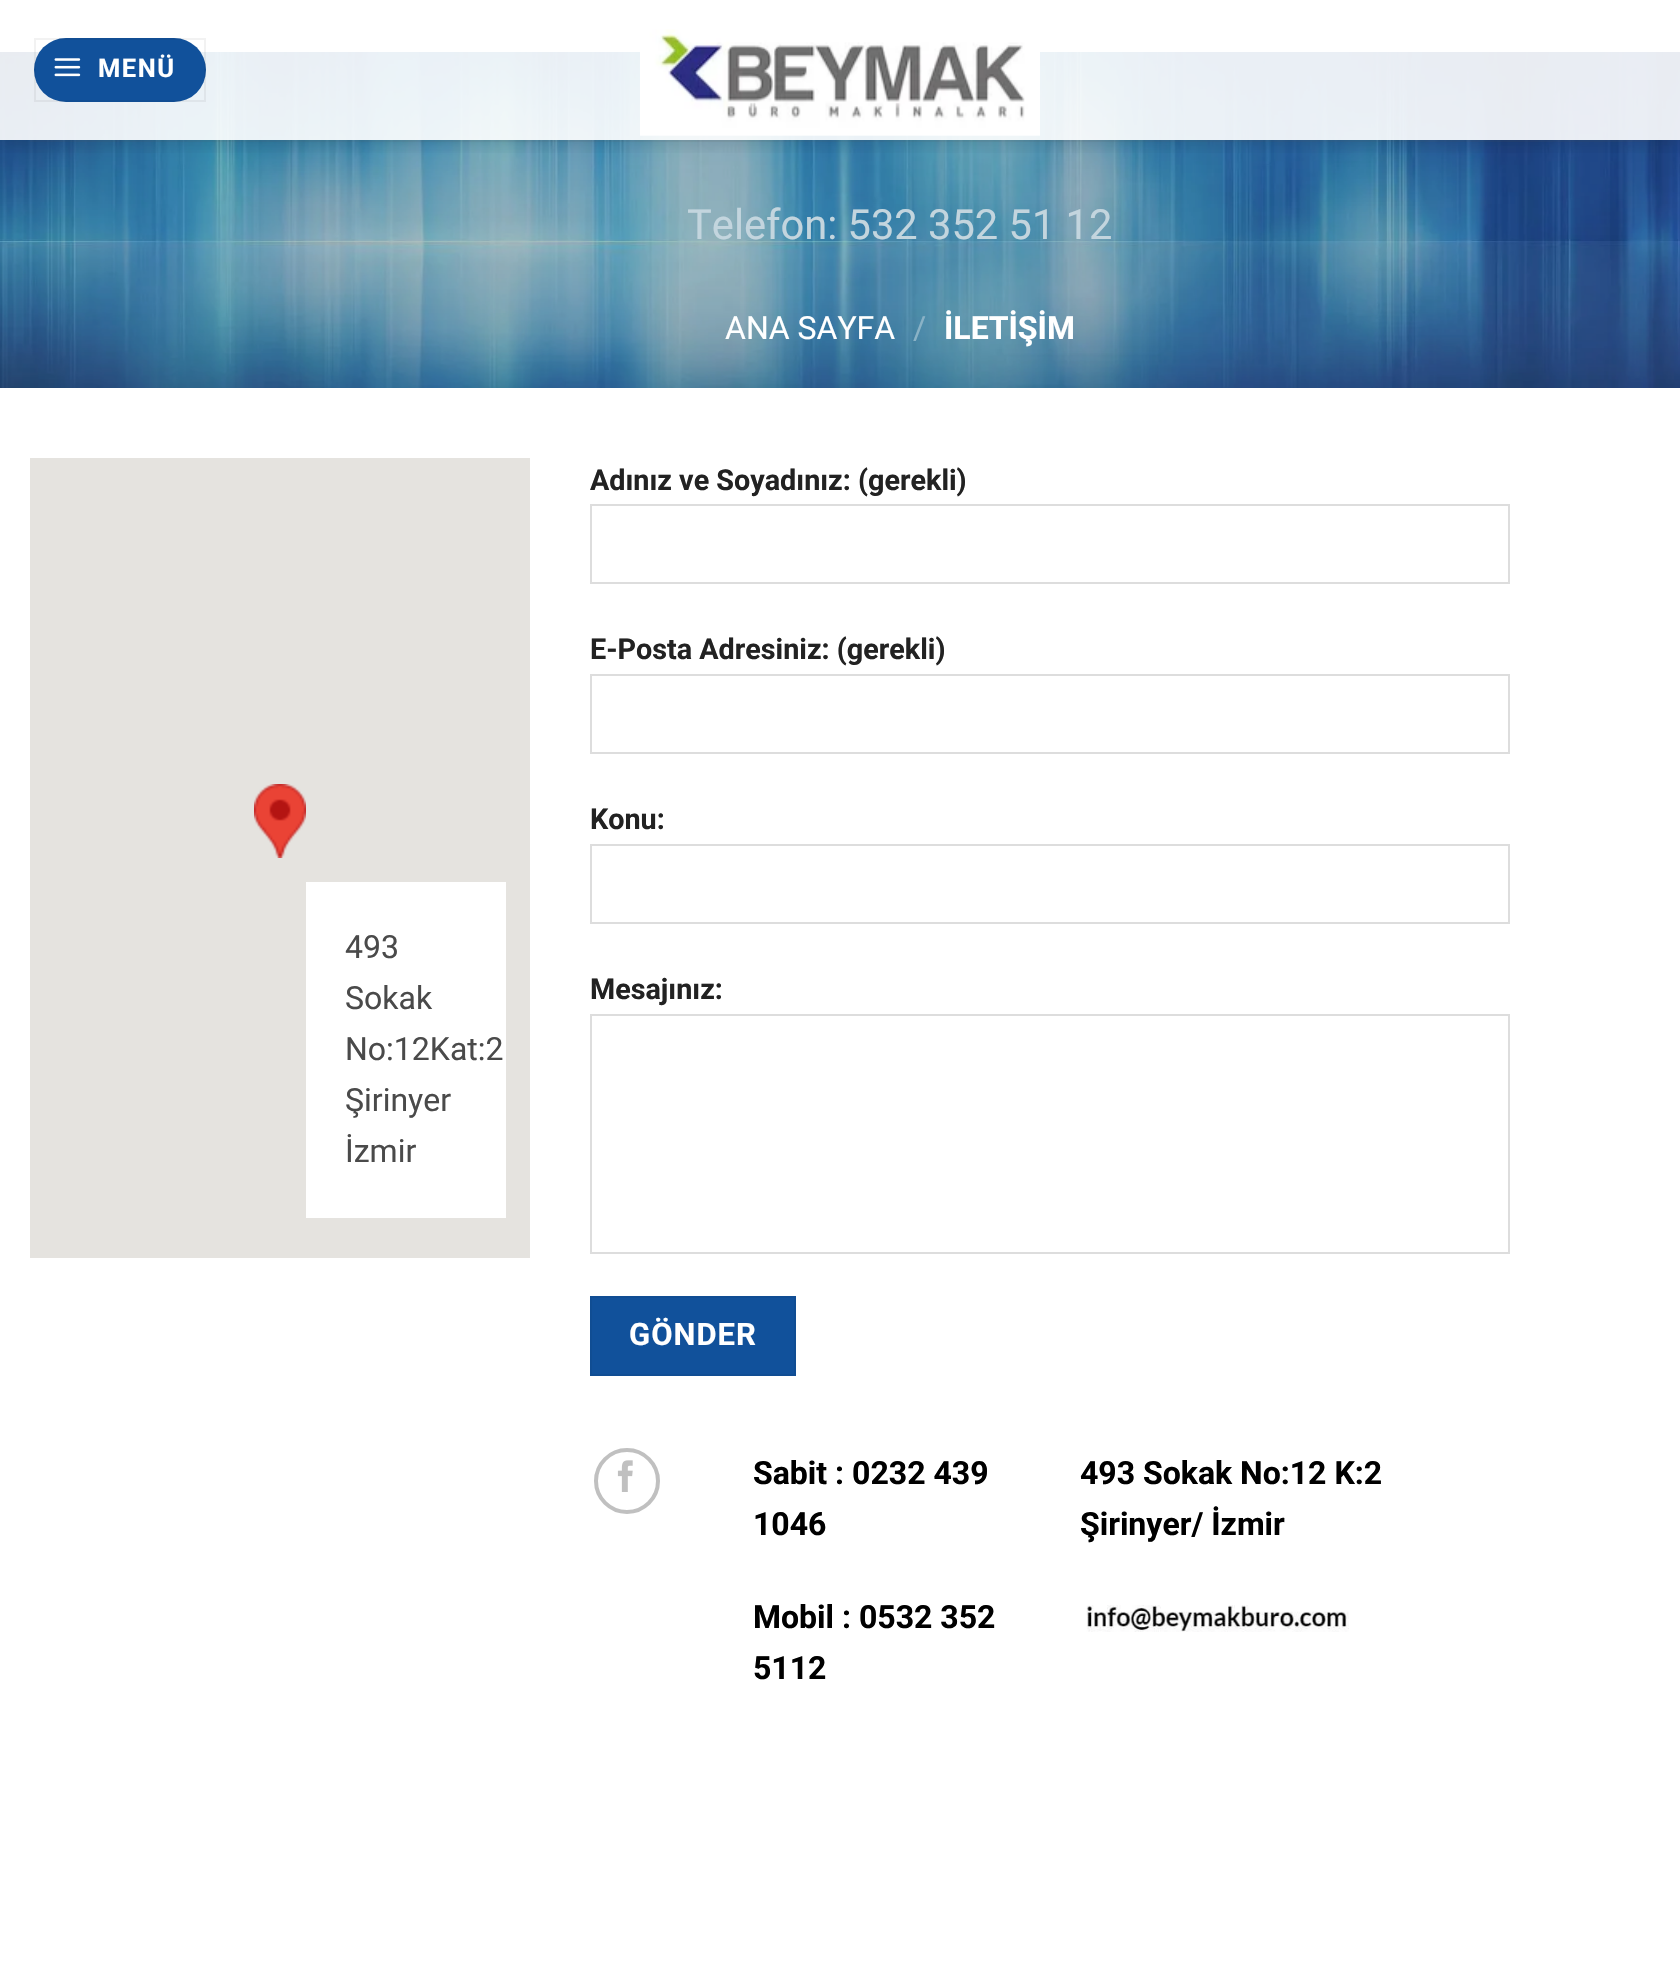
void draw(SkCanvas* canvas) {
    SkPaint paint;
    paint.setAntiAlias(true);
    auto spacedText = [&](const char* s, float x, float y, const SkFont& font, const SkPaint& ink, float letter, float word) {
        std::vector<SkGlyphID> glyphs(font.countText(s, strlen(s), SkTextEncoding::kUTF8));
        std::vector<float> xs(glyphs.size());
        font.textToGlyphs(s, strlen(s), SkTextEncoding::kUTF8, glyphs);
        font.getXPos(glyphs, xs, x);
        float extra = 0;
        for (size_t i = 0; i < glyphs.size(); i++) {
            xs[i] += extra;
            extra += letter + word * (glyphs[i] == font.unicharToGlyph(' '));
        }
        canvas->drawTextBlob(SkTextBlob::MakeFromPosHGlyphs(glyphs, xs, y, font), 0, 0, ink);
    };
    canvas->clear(0xFFFFFFFF);
    canvas->drawImageRect(SkImages::DeferredFromEncodedData(SkData::MakeFromFileName("img3.png")), SkRect::MakeXYWH(0, 52, 1680, 336), SkSamplingOptions());
    canvas->save();
    canvas->clipRect(SkRect::MakeXYWH(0, 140, 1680, 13));
    paint.setColor(0x26000000);
    paint.setMaskFilter(SkMaskFilter::MakeBlur(kNormal_SkBlurStyle, 10));
    canvas->drawRect(SkRect::MakeXYWH(2, 2, 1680, 140), paint);
    paint.setMaskFilter(nullptr);
    canvas->restore();
    paint.setColor(0xE6FFFFFF);
    canvas->drawRect(SkRect::MakeXYWH(0, 52, 1680, 88), paint);
    paint.setColor(0xFF11519B);
    canvas->drawRoundRect(SkRect::MakeXYWH(34, 38, 172, 64), 32, 32, paint);
    paint.setStyle(SkPaint::kStroke_Style);
    paint.setStrokeWidth(2);
    paint.setColor(0x0D000000);
    canvas->drawRect(SkRect::MakeXYWH(35, 39, 170, 62), paint);
    canvas->drawImageRect(SkImages::DeferredFromEncodedData(SkData::MakeFromFileName("img1.png")), SkRect::MakeXYWH(54, 58, 27, 19), SkSamplingOptions());
    SkFont font1(fontMgr->matchFamilyStyle("Roboto", SkFontStyle::Bold()), 25.5f);
    font1.setSubpixel(true);
    paint.setStyle(SkPaint::kFill_Style);
    paint.setColor(0xFFFFFFFF);
    spacedText("MENÜ", 98, 77, font1, paint, 1.5f, 0);
    canvas->drawImageRect(SkImages::DeferredFromEncodedData(SkData::MakeFromFileName("img2.png")), SkRect::MakeXYWH(640, 29, 400, 107), SkSamplingOptions());
    paint.setColor(0x1A4A4A4A);
    canvas->drawRect(SkRect::MakeXYWH(30, 140, 1620, 2), paint);
    SkFont font2(fontMgr->matchFamilyStyle("Roboto", SkFontStyle::Normal()), 41.6f);
    font2.setSubpixel(true);
    paint.setColor(0xFFC3D5DE);
    canvas->drawString("Telefon: 532 352 51 12", 687, 239, font2, paint);
    SkFont font3(fontMgr->matchFamilyStyle("Roboto", SkFontStyle::Normal()), 32);
    font3.setSubpixel(true);
    paint.setColor(0xFFFFFFFF);
    canvas->drawString("ANA SAYFA", 725, 339, font3, paint);
    paint.setColor(0xFF8AB2C6);
    canvas->drawString("/", 913, 339, font3, paint);
    SkFont font4(fontMgr->matchFamilyStyle("Roboto", SkFontStyle::Bold()), 32);
    font4.setSubpixel(true);
    paint.setColor(0xFFFFFFFF);
    canvas->drawString("İLETİŞİM", 944, 339, font4, paint);
    paint.setColor(0xFFE5E3DF);
    canvas->drawRect(SkRect::MakeXYWH(30, 458, 500, 800), paint);
    canvas->drawImageRect(SkImages::DeferredFromEncodedData(SkData::MakeFromFileName("img4.png")), SkRect::MakeXYWH(254, 784, 52, 74), SkSamplingOptions());
    paint.setColor(0xFFFFFFFF);
    canvas->drawRect(SkRect::MakeXYWH(306, 882, 200, 336), paint);
    paint.setColor(0xFF4A4A4A);
    canvas->drawString("493", 345, 958, font3, paint);
    canvas->drawString("Sokak", 345, 1009, font3, paint);
    canvas->drawString("No:12Kat:2", 345, 1060, font3, paint);
    canvas->drawString("Şirinyer", 345, 1111, font3, paint);
    canvas->drawString("İzmir", 345, 1162, font3, paint);
    SkFont font5(fontMgr->matchFamilyStyle("Roboto", SkFontStyle::Bold()), 28.75f);
    font5.setSubpixel(true);
    paint.setColor(0xFF222222);
    canvas->drawString("Adınız ve Soyadınız: (gerekli)", 590, 490, font5, paint);
    paint.setStyle(SkPaint::kStroke_Style);
    paint.setColor(0xFFDDDDDD);
    canvas->drawRect(SkRect::MakeXYWH(591, 505, 918, 78), paint);
    paint.setStyle(SkPaint::kFill_Style);
    paint.setColor(0xFF222222);
    canvas->drawString("E-Posta Adresiniz: (gerekli)", 590, 659, font5, paint);
    paint.setStyle(SkPaint::kStroke_Style);
    paint.setColor(0xFFDDDDDD);
    canvas->drawRect(SkRect::MakeXYWH(591, 675, 918, 78), paint);
    paint.setStyle(SkPaint::kFill_Style);
    paint.setColor(0xFF222222);
    canvas->drawString("Konu:", 590, 829, font5, paint);
    paint.setStyle(SkPaint::kStroke_Style);
    paint.setColor(0xFFDDDDDD);
    canvas->drawRect(SkRect::MakeXYWH(591, 845, 918, 78), paint);
    paint.setStyle(SkPaint::kFill_Style);
    paint.setColor(0xFF222222);
    canvas->drawString("Mesajınız:", 590, 999, font5, paint);
    paint.setStyle(SkPaint::kStroke_Style);
    paint.setColor(0xFFDDDDDD);
    canvas->drawRect(SkRect::MakeXYWH(591, 1015, 918, 238), paint);
    paint.setStyle(SkPaint::kFill_Style);
    paint.setColor(0xFF11519B);
    canvas->drawRect(SkRect::MakeXYWH(591, 1297, 204, 78), paint);
    paint.setStyle(SkPaint::kStroke_Style);
    paint.setColor(0xFF104D93);
    canvas->drawRect(SkRect::MakeXYWH(591, 1297, 204, 78), paint);
    SkFont font6(fontMgr->matchFamilyStyle("Roboto", SkFontStyle::Bold()), 31);
    font6.setSubpixel(true);
    paint.setStyle(SkPaint::kFill_Style);
    paint.setColor(0xFFFFFFFF);
    spacedText("GÖNDER", 629, 1345, font6, paint, 1, 0);
    paint.setStyle(SkPaint::kStroke_Style);
    paint.setStrokeWidth(4);
    paint.setColor(0xFFC0C0C0);
    canvas->drawCircle(627, 1481, 31, paint);
    canvas->drawImageRect(SkImages::DeferredFromEncodedData(SkData::MakeFromFileName("img5.png")), SkRect::MakeXYWH(617, 1460, 16, 32), SkSamplingOptions());
    paint.setStyle(SkPaint::kFill_Style);
    paint.setColor(0xFF000000);
    canvas->drawString("Sabit : 0232 439", 753, 1484, font4, paint);
    canvas->drawString("1046", 753, 1535, font4, paint);
    canvas->drawString("Mobil : 0532 352", 753, 1628, font4, paint);
    canvas->drawString("5112", 753, 1679, font4, paint);
    canvas->drawString("493 Sokak No:12 K:2", 1080, 1484, font4, paint);
    canvas->drawString("Şirinyer/ İzmir", 1080, 1535, font4, paint);
    canvas->drawImageRect(SkImages::DeferredFromEncodedData(SkData::MakeFromFileName("img6.png")), SkRect::MakeXYWH(1086, 1605, 263, 27), SkSamplingOptions());
}
